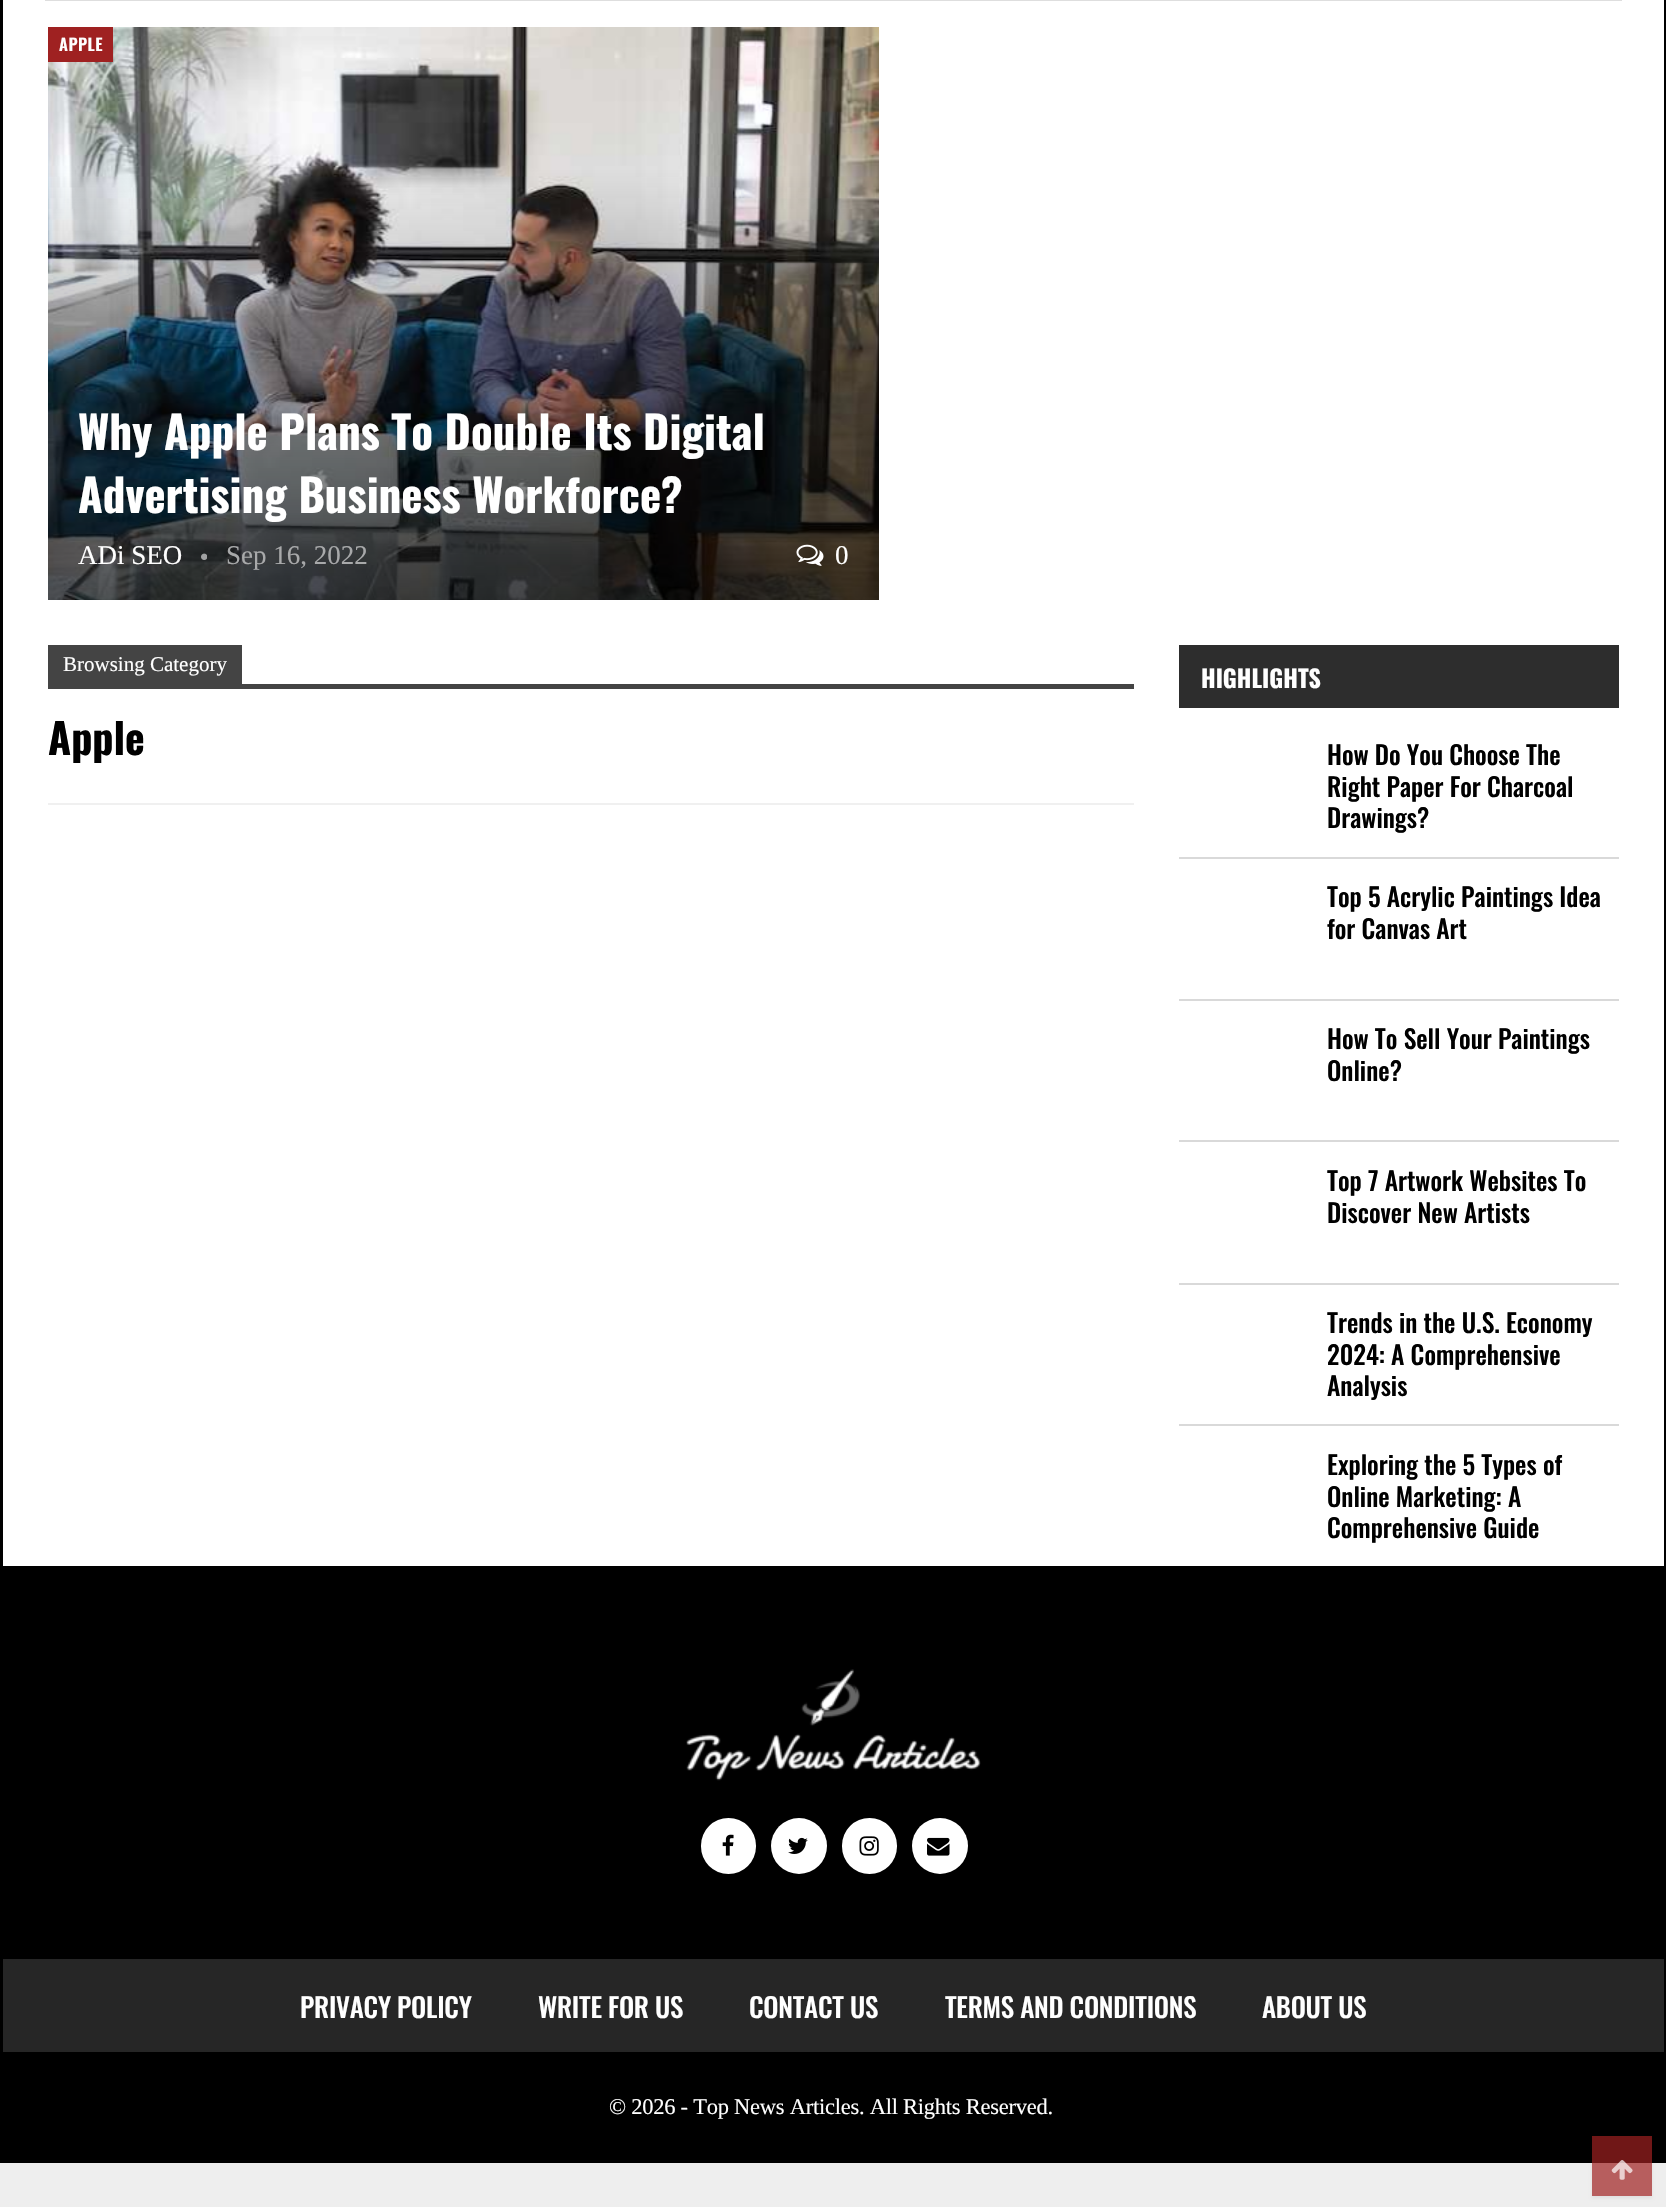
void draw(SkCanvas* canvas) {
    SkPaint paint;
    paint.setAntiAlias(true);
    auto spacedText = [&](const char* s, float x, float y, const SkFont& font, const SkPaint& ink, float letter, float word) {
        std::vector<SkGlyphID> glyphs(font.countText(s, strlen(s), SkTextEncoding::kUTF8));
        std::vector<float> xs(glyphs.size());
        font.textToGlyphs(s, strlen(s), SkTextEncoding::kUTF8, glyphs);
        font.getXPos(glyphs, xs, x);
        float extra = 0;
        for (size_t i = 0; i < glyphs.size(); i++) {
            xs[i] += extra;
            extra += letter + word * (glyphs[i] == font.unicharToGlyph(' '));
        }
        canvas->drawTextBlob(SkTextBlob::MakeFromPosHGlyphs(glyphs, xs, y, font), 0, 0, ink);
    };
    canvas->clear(0xFFEEEEEE);
    paint.setColor(0xFFFFFFFF);
    canvas->drawRect(SkRect::MakeXYWH(3, 0, 1661, 1566), paint);
    paint.setStyle(SkPaint::kStroke_Style);
    paint.setStrokeWidth(3);
    paint.setColor(0xFF000000);
    canvas->drawRect(SkRect::MakeXYWH(1.5f, -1.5f, 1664, 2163), paint);
    paint.setStyle(SkPaint::kFill_Style);
    paint.setColor(0xFFDEDEDE);
    canvas->drawRect(SkRect::MakeXYWH(45, 0, 1577, 1), paint);
    canvas->drawImageRect(SkImages::DeferredFromEncodedData(SkData::MakeFromFileName("img1.png")), SkRect::MakeXYWH(48, 27, 831, 573), SkSamplingOptions());
    paint.setColor(0xFF9F2121);
    canvas->drawRect(SkRect::MakeXYWH(48, 27, 65, 35), paint);
    SkFont font1(fontMgr->matchFamilyStyle("Oswald", SkFontStyle(600, SkFontStyle::kNormal_Width, SkFontStyle::kUpright_Slant)), 16.5f);
    font1.setSubpixel(true);
    paint.setColor(0xFFFFFFFF);
    spacedText("APPLE", 59, 51, font1, paint, 0.5f, 0);
    SkFont font2(fontMgr->matchFamilyStyle("Oswald", SkFontStyle::Bold()), 45);
    font2.setSubpixel(true);
    canvas->drawString("Why Apple Plans To Double Its Digital", 78, 450, font2, paint);
    canvas->drawString("Advertising Business Workforce?", 78, 513, font2, paint);
    SkFont font3(fontMgr->matchFamilyStyle("Liberation Serif", SkFontStyle::Normal()), 27);
    font3.setSubpixel(true);
    canvas->drawString("ADi SEO", 78, 564, font3, paint);
    canvas->drawImageRect(SkImages::DeferredFromEncodedData(SkData::MakeFromFileName("img2.png")), SkRect::MakeXYWH(201, 553, 6, 7), SkSamplingOptions());
    paint.setColor(0xFFA8A9AA);
    canvas->drawString("Sep 16, 2022", 226, 564, font3, paint);
    canvas->drawImageRect(SkImages::DeferredFromEncodedData(SkData::MakeFromFileName("img3.png")), SkRect::MakeXYWH(796, 544, 28, 22), SkSamplingOptions());
    paint.setColor(0xFFFFFFFF);
    canvas->drawString("0", 835, 564, font3, paint);
    paint.setColor(0xFFF0F0F0);
    canvas->drawRect(SkRect::MakeXYWH(48, 803, 1086, 2), paint);
    paint.setColor(0xFF444444);
    canvas->drawRect(SkRect::MakeXYWH(48, 645, 194, 39), paint);
    SkFont font4(fontMgr->matchFamilyStyle("Liberation Serif", SkFontStyle::Normal()), 21);
    font4.setSubpixel(true);
    paint.setColor(0xFFFFFFFF);
    canvas->drawString("Browsing Category", 63, 671, font4, paint);
    paint.setColor(0xFF444444);
    canvas->drawRect(SkRect::MakeXYWH(48, 684, 1086, 5), paint);
    SkFont font5(fontMgr->matchFamilyStyle("Oswald", SkFontStyle::Bold()), 42);
    font5.setSubpixel(true);
    paint.setColor(0xFF000000);
    canvas->drawString("Apple", 48, 755, font5, paint);
    paint.setColor(0xFF2D2D2D);
    canvas->drawRect(SkRect::MakeXYWH(1179, 645, 440, 63), paint);
    SkFont font6(fontMgr->matchFamilyStyle("Oswald", SkFontStyle::Bold()), 24);
    font6.setSubpixel(true);
    paint.setColor(0xFFFFFFFF);
    canvas->drawString("HIGHLIGHTS", 1201, 688, font6, paint);
    paint.setColor(0xFFD9D9D9);
    canvas->drawRect(SkRect::MakeXYWH(1179, 857, 440, 2), paint);
    SkFont font7(fontMgr->matchFamilyStyle("Oswald", SkFontStyle(500, SkFontStyle::kNormal_Width, SkFontStyle::kUpright_Slant)), 25.5f);
    font7.setSubpixel(true);
    paint.setColor(0xFF000000);
    canvas->drawString("How Do You Choose The", 1327, 765, font7, paint);
    canvas->drawString("Right Paper For Charcoal", 1327, 797, font7, paint);
    canvas->drawString("Drawings?", 1327, 828, font7, paint);
    paint.setColor(0xFFD9D9D9);
    canvas->drawRect(SkRect::MakeXYWH(1179, 999, 440, 2), paint);
    paint.setColor(0xFF000000);
    canvas->drawString("Top 5 Acrylic Paintings Idea", 1327, 907, font7, paint);
    canvas->drawString("for Canvas Art", 1327, 939, font7, paint);
    paint.setColor(0xFFD9D9D9);
    canvas->drawRect(SkRect::MakeXYWH(1179, 1140, 440, 2), paint);
    paint.setColor(0xFF000000);
    canvas->drawString("How To Sell Your Paintings", 1327, 1049, font7, paint);
    canvas->drawString("Online?", 1327, 1081, font7, paint);
    paint.setColor(0xFFD9D9D9);
    canvas->drawRect(SkRect::MakeXYWH(1179, 1283, 440, 2), paint);
    paint.setColor(0xFF000000);
    canvas->drawString("Top 7 Artwork Websites To", 1327, 1191, font7, paint);
    canvas->drawString("Discover New Artists", 1327, 1223, font7, paint);
    paint.setColor(0xFFD9D9D9);
    canvas->drawRect(SkRect::MakeXYWH(1179, 1424, 440, 2), paint);
    paint.setColor(0xFF000000);
    canvas->drawString("Trends in the U.S. Economy", 1327, 1333, font7, paint);
    canvas->drawString("2024: A Comprehensive", 1327, 1365, font7, paint);
    canvas->drawString("Analysis", 1327, 1396, font7, paint);
    canvas->drawString("Exploring the 5 Types of", 1327, 1475, font7, paint);
    canvas->drawString("Online Marketing: A", 1327, 1507, font7, paint);
    canvas->drawString("Comprehensive Guide", 1327, 1538, font7, paint);
    canvas->drawRect(SkRect::MakeXYWH(3, 1566, 1661, 594), paint);
    canvas->drawImageRect(SkImages::DeferredFromEncodedData(SkData::MakeFromFileName("img4.png")), SkRect::MakeXYWH(686, 1669, 295, 112), SkSamplingOptions());
    paint.setColor(0xFFFFFFFF);
    canvas->drawRoundRect(SkRect::MakeXYWH(701, 1818, 55, 56), 27.5f, 27.5f, paint);
    canvas->drawImageRect(SkImages::DeferredFromEncodedData(SkData::MakeFromFileName("img5.png")), SkRect::MakeXYWH(722, 1834, 12, 22), SkSamplingOptions());
    canvas->drawCircle(799, 1846, 28, paint);
    canvas->drawImageRect(SkImages::DeferredFromEncodedData(SkData::MakeFromFileName("img6.png")), SkRect::MakeXYWH(788, 1837, 20, 17), SkSamplingOptions());
    canvas->drawRoundRect(SkRect::MakeXYWH(842, 1818, 55, 56), 27.5f, 27.5f, paint);
    canvas->drawImageRect(SkImages::DeferredFromEncodedData(SkData::MakeFromFileName("img7.png")), SkRect::MakeXYWH(859, 1836, 20, 20), SkSamplingOptions());
    canvas->drawCircle(940, 1846, 28, paint);
    canvas->drawImageRect(SkImages::DeferredFromEncodedData(SkData::MakeFromFileName("img8.png")), SkRect::MakeXYWH(927, 1837, 23, 19), SkSamplingOptions());
    paint.setColor(0xFF262626);
    canvas->drawRect(SkRect::MakeXYWH(3, 1959, 1661, 93), paint);
    SkFont font8(fontMgr->matchFamilyStyle("Oswald", SkFontStyle(500, SkFontStyle::kNormal_Width, SkFontStyle::kUpright_Slant)), 27);
    font8.setSubpixel(true);
    paint.setColor(0xFFFFFFFF);
    spacedText("PRIVACY POLICY", 300, 2018, font8, paint, -0.25f, 0);
    spacedText("WRITE FOR US", 538, 2018, font8, paint, -0.25f, 0);
    spacedText("CONTACT US", 749, 2018, font8, paint, -0.25f, 0);
    spacedText("TERMS AND CONDITIONS", 945, 2018, font8, paint, -0.25f, 0);
    spacedText("ABOUT US", 1262, 2018, font8, paint, -0.25f, 0);
    SkFont font9(fontMgr->matchFamilyStyle("Liberation Serif", SkFontStyle::Normal()), 22.5f);
    font9.setSubpixel(true);
    spacedText("© 2026 - Top News Articles. All Rights Reserved.", 609, 2114, font9, paint, -0.25f, 0);
    canvas->save();
    canvas->clipPath(SkPathBuilder(SkPathFillType::kEvenOdd).moveTo(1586, 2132).lineTo(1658, 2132).lineTo(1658, 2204).lineTo(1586, 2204).close().moveTo(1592, 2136).lineTo(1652, 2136).lineTo(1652, 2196).lineTo(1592, 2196).close().detach(), true);
    paint.setColor(0x0F000000);
    paint.setMaskFilter(SkMaskFilter::MakeBlur(kNormal_SkBlurStyle, 1.5f));
    canvas->drawRect(SkRect::MakeXYWH(1592, 2138, 60, 60), paint);
    paint.setMaskFilter(nullptr);
    canvas->restore();
    paint.setColor(0xB39F2121);
    canvas->drawRect(SkRect::MakeXYWH(1592, 2136, 60, 60), paint);
    canvas->drawImageRect(SkImages::DeferredFromEncodedData(SkData::MakeFromFileName("img9.png")), SkRect::MakeXYWH(1611, 2160, 22, 20), SkSamplingOptions());
}
